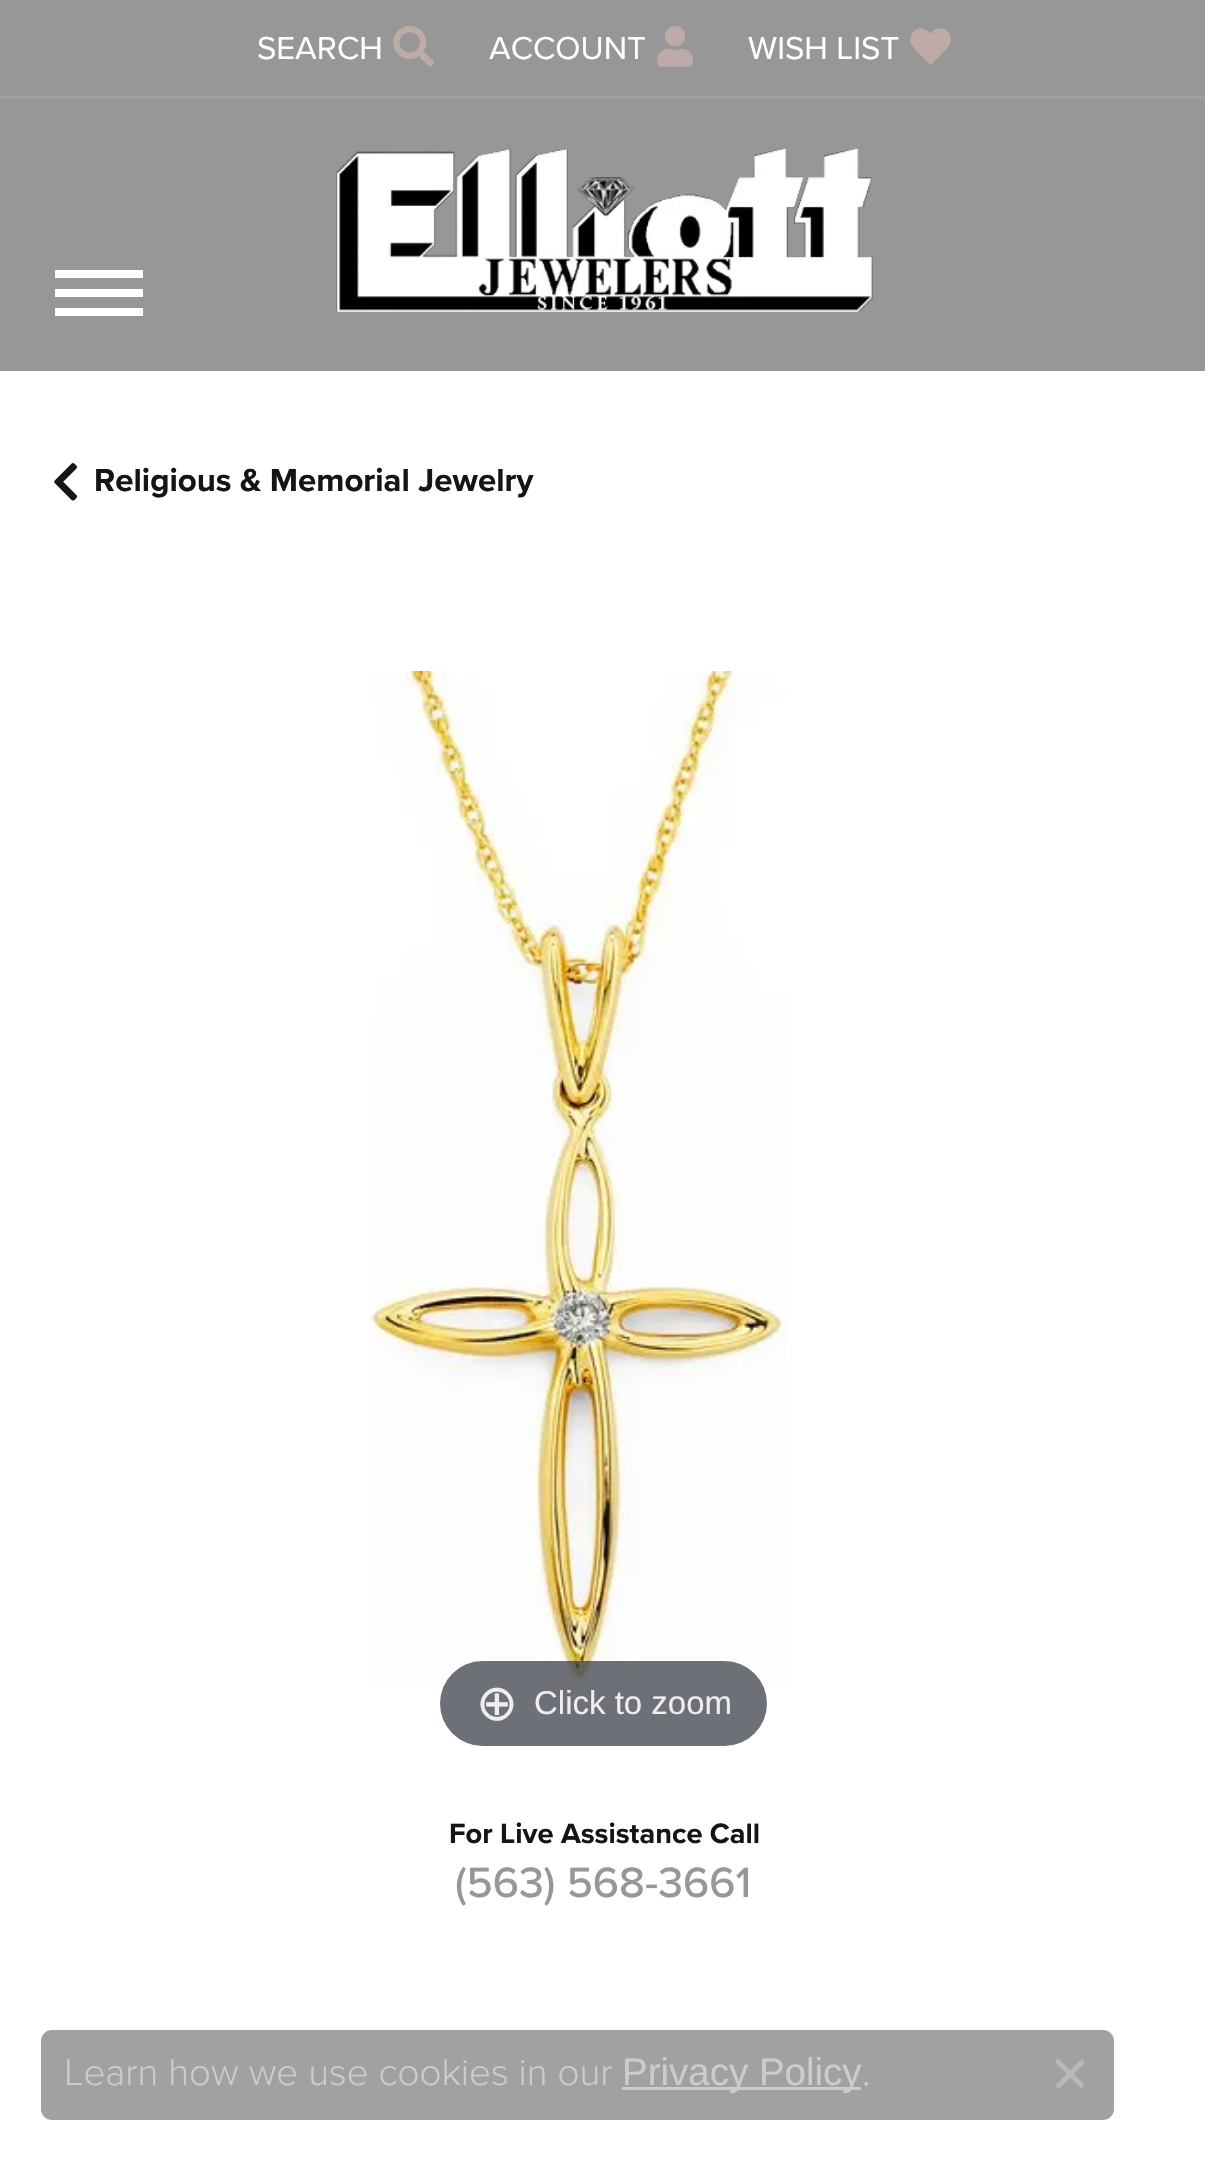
void draw(SkCanvas* canvas) {
    SkPaint paint;
    paint.setAntiAlias(true);
    canvas->clear(0xFF979797);
    paint.setColor(0xFF9F9F9F);
    canvas->drawRect(SkRect::MakeXYWH(0, 96, 1205, 3), paint);
    SkFont font1(fontMgr->matchFamilyStyle("Proxima Nova", SkFontStyle::Normal()), 33);
    font1.setSubpixel(true);
    paint.setColor(0xFFFFFFFF);
    canvas->drawString("SEARCH", 257, 59, font1, paint);
    canvas->drawImageRect(SkImages::DeferredFromEncodedData(SkData::MakeFromFileName("img1.png")), SkRect::MakeXYWH(393, 26, 41, 41), SkSamplingOptions());
    canvas->drawString("ACCOUNT", 489, 59, font1, paint);
    canvas->drawImageRect(SkImages::DeferredFromEncodedData(SkData::MakeFromFileName("img2.png")), SkRect::MakeXYWH(657, 26, 36, 41), SkSamplingOptions());
    canvas->drawString("WISH LIST", 748, 59, font1, paint);
    canvas->drawImageRect(SkImages::DeferredFromEncodedData(SkData::MakeFromFileName("img3.png")), SkRect::MakeXYWH(910, 28, 41, 36), SkSamplingOptions());
    canvas->drawRect(SkRect::MakeXYWH(55, 270, 88, 8), paint);
    canvas->drawRect(SkRect::MakeXYWH(55, 289, 88, 8), paint);
    canvas->drawRect(SkRect::MakeXYWH(55, 308, 88, 8), paint);
    canvas->drawImageRect(SkImages::DeferredFromEncodedData(SkData::MakeFromFileName("img4.png")), SkRect::MakeXYWH(336, 147, 537, 165), SkSamplingOptions());
    canvas->drawRect(SkRect::MakeXYWH(0, 371, 1205, 1789), paint);
    canvas->drawImageRect(SkImages::DeferredFromEncodedData(SkData::MakeFromFileName("img5.png")), SkRect::MakeXYWH(54, 463, 23, 38), SkSamplingOptions());
    SkFont font2(fontMgr->matchFamilyStyle("Proxima Nova", SkFontStyle::Bold()), 33);
    font2.setSubpixel(true);
    paint.setColor(0xFF151515);
    canvas->drawString("Religious & Memorial Jewelry", 94, 491, font2, paint);
    canvas->drawImageRect(SkImages::DeferredFromEncodedData(SkData::MakeFromFileName("img6.png")), SkRect::MakeXYWH(368, 671, 419, 1017), SkSamplingOptions());
    paint.setColor(0xB331333D);
    canvas->drawRoundRect(SkRect::MakeXYWH(440, 1661, 327, 85), 42.5f, 42.5f, paint);
    SkFont font3(fontMgr->matchFamilyStyle("DejaVu Sans", SkFontStyle::Normal()), 50);
    font3.setSubpixel(true);
    paint.setColor(0xFFEEEEEE);
    canvas->drawString("⊕", 476, 1720, font3, paint);
    SkFont font4(fontMgr->matchFamilyStyle("Liberation Sans", SkFontStyle::Normal()), 33);
    font4.setSubpixel(true);
    canvas->drawString("Click to zoom", 534, 1714, font4, paint);
    SkFont font5(fontMgr->matchFamilyStyle("Proxima Nova", SkFontStyle::Bold()), 29);
    font5.setSubpixel(true);
    paint.setColor(0xFF151515);
    canvas->drawString("For Live Assistance Call", 449, 1843, font5, paint);
    SkFont font6(fontMgr->matchFamilyStyle("Proxima Nova", SkFontStyle(500, SkFontStyle::kNormal_Width, SkFontStyle::kUpright_Slant)), 44);
    font6.setSubpixel(true);
    paint.setColor(0xFF979797);
    canvas->drawString("(563) 568-3661", 455, 1897, font6, paint);
    paint.setColor(0xE6979797);
    canvas->drawRoundRect(SkRect::MakeXYWH(41, 2030, 1073, 90), 11, 11, paint);
    SkFont font7(fontMgr->matchFamilyStyle("Proxima Nova", SkFontStyle(300, SkFontStyle::kNormal_Width, SkFontStyle::kUpright_Slant)), 38.5f);
    font7.setSubpixel(true);
    paint.setColor(0xFFCCCCCC);
    canvas->drawString("Learn how we use cookies in our", 64, 2085, font7, paint);
    canvas->drawRect(SkRect::MakeXYWH(622, 2087, 239, 3), paint);
    SkFont font8(fontMgr->matchFamilyStyle("Liberation Sans", SkFontStyle::Normal()), 38.5f);
    font8.setSubpixel(true);
    canvas->drawString("Privacy Policy", 622, 2085, font8, paint);
    canvas->drawString(".", 862, 2085, font7, paint);
    canvas->drawImageRect(SkImages::DeferredFromEncodedData(SkData::MakeFromFileName("img7.png")), SkRect::MakeXYWH(1055, 2059, 30, 30), SkSamplingOptions());
}
